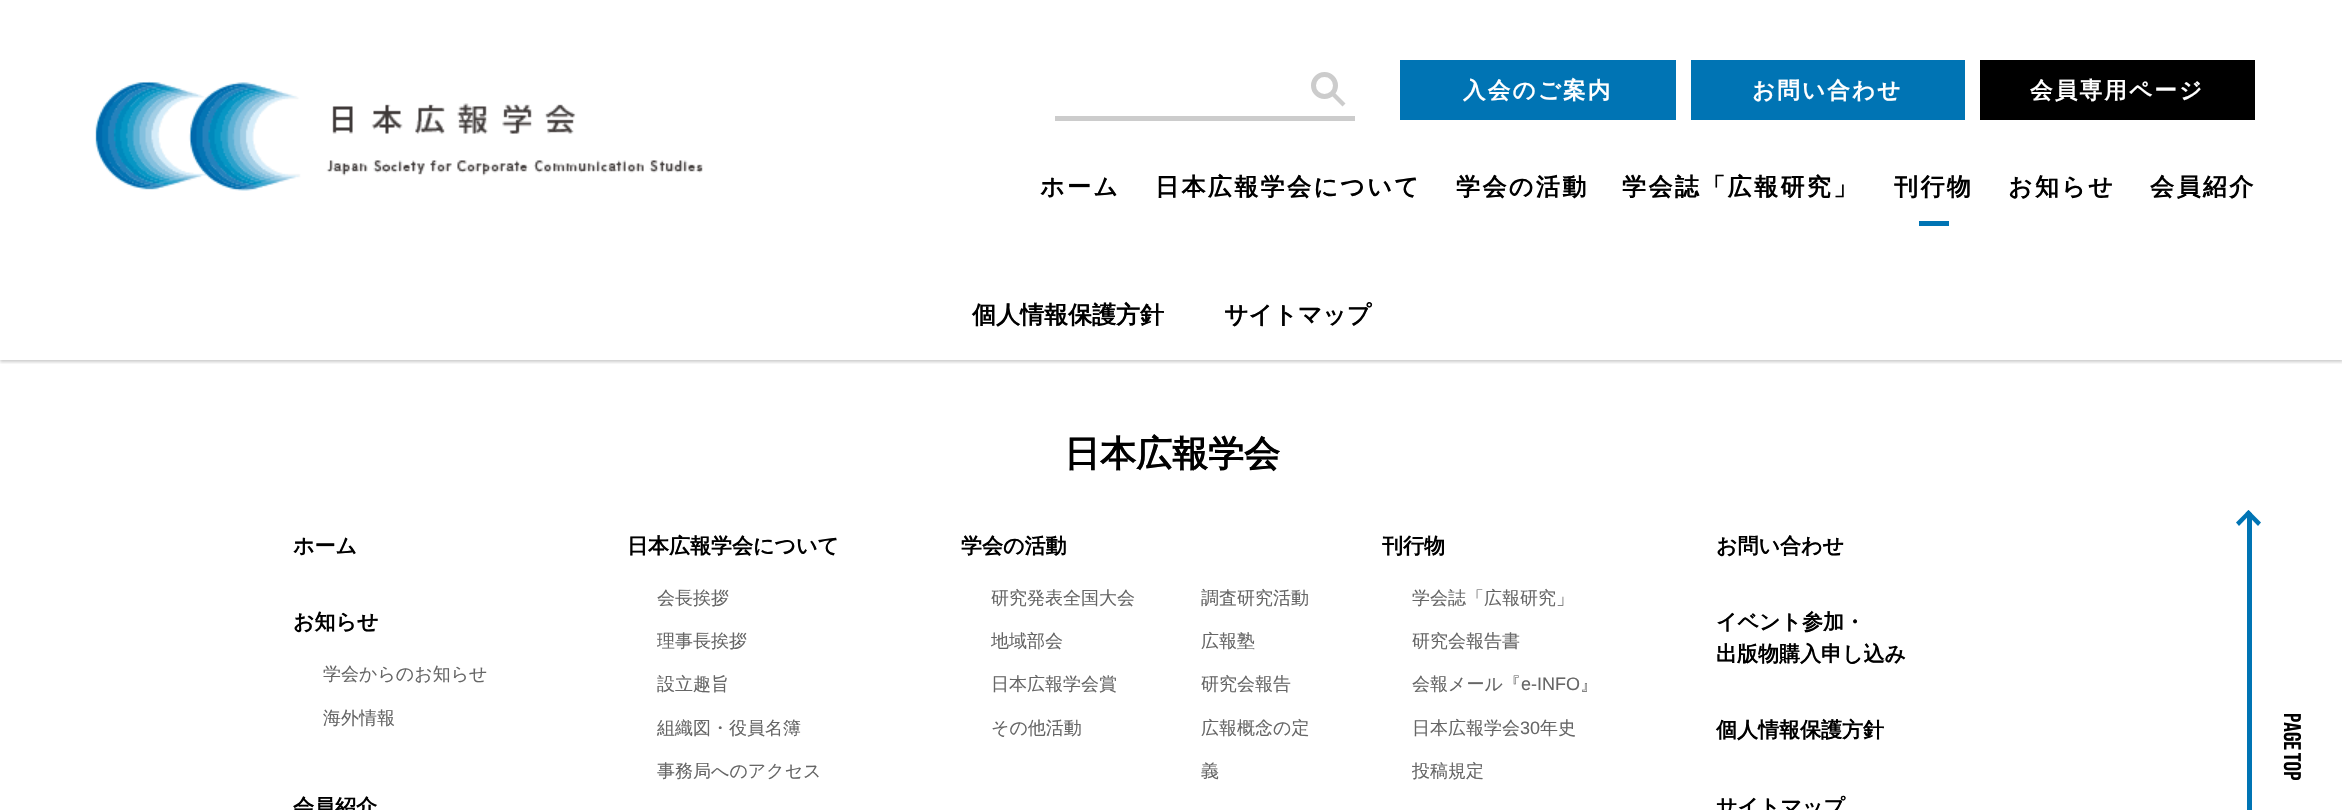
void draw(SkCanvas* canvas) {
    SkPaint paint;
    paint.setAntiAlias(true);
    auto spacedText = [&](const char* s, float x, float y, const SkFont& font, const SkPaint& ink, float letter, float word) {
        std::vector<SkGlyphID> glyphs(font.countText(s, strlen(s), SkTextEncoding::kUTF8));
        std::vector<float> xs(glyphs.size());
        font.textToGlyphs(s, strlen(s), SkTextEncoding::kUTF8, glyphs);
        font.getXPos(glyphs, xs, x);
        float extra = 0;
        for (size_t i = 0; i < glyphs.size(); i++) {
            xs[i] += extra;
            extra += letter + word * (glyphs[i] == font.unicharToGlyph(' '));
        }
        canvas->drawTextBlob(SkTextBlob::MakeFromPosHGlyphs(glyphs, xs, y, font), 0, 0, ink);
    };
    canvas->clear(0xFFFFFFFF);
    canvas->drawImageRect(SkImages::DeferredFromEncodedData(SkData::MakeFromFileName("img1.png")), SkRect::MakeXYWH(95, 81, 608, 110), SkSamplingOptions());
    paint.setStyle(SkPaint::kStroke_Style);
    paint.setStrokeWidth(5);
    paint.setColor(0xFFCCCCCC);
    canvas->drawCircle(1324.5f, 85.5f, 11, paint);
    paint.setStyle(SkPaint::kFill_Style);
    canvas->drawPath(SkPathBuilder().moveTo(1335, 93).lineTo(1345.5f, 103.5f).lineTo(1342.5f, 106.5f).lineTo(1332, 96).close().detach(), paint);
    canvas->drawRect(SkRect::MakeXYWH(1055, 116, 300, 5), paint);
    paint.setColor(0xFF0074B4);
    canvas->drawRect(SkRect::MakeXYWH(1400, 60, 276, 60), paint);
    SkFont font1(fontMgr->matchFamilyStyle("WenQuanYi Zen Hei", SkFontStyle::Bold()), 22.5f);
    font1.setSubpixel(true);
    paint.setColor(0xFFFFFFFF);
    spacedText("入会のご案内", 1463, 98, font1, paint, 2.25f, 0);
    paint.setColor(0xFF0074B4);
    canvas->drawRect(SkRect::MakeXYWH(1691, 60, 274, 60), paint);
    paint.setColor(0xFFFFFFFF);
    spacedText("お問い合わせ", 1752, 98, font1, paint, 2.25f, 0);
    paint.setColor(0xFF000000);
    canvas->drawRect(SkRect::MakeXYWH(1980, 60, 275, 60), paint);
    paint.setColor(0xFFFFFFFF);
    spacedText("会員専用ページ", 2030, 98, font1, paint, 2.25f, 0);
    SkFont font2(fontMgr->matchFamilyStyle("WenQuanYi Zen Hei", SkFontStyle::Bold()), 24);
    font2.setSubpixel(true);
    paint.setColor(0xFF000000);
    spacedText("ホーム", 1040, 195, font2, paint, 2.4f, 0);
    spacedText("日本広報学会について", 1155, 195, font2, paint, 2.4f, 0);
    spacedText("学会の活動", 1456, 195, font2, paint, 2.4f, 0);
    spacedText("学会誌「広報研究」", 1622, 195, font2, paint, 2.4f, 0);
    spacedText("刊行物", 1894, 195, font2, paint, 2.4f, 0);
    paint.setColor(0xFF0074B4);
    canvas->drawRect(SkRect::MakeXYWH(1919, 221, 30, 5), paint);
    paint.setColor(0xFF000000);
    spacedText("お知らせ", 2008, 195, font2, paint, 2.4f, 0);
    spacedText("会員紹介", 2150, 195, font2, paint, 2.4f, 0);
    canvas->save();
    canvas->clipRect(SkRect::MakeXYWH(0, 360, 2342, 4));
    paint.setColor(0x33000000);
    paint.setMaskFilter(SkMaskFilter::MakeBlur(kNormal_SkBlurStyle, 1.5f));
    canvas->drawRect(SkRect::MakeXYWH(0, 272, 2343, 90), paint);
    paint.setMaskFilter(nullptr);
    canvas->restore();
    paint.setColor(0xFF000000);
    canvas->drawString("個人情報保護方針", 972, 323, font2, paint);
    canvas->drawString("サイトマップ", 1224, 323, font2, paint);
    SkFont font3(fontMgr->matchFamilyStyle("WenQuanYi Zen Hei", SkFontStyle::Bold()), 36);
    font3.setSubpixel(true);
    canvas->drawString("日本広報学会", 1064, 466, font3, paint);
    SkFont font4(fontMgr->matchFamilyStyle("WenQuanYi Zen Hei", SkFontStyle::Bold()), 21);
    font4.setSubpixel(true);
    canvas->drawString("ホーム", 293, 553, font4, paint);
    canvas->drawString("日本広報学会について", 627, 553, font4, paint);
    SkFont font5(fontMgr->matchFamilyStyle("WenQuanYi Zen Hei", SkFontStyle(500, SkFontStyle::kNormal_Width, SkFontStyle::kUpright_Slant)), 18);
    font5.setSubpixel(true);
    paint.setColor(0xFF666666);
    canvas->drawString("会長挨拶", 657, 604, font5, paint);
    canvas->drawString("理事長挨拶", 657, 647, font5, paint);
    canvas->drawString("設立趣旨", 657, 690, font5, paint);
    canvas->drawString("組織図・役員名簿", 657, 734, font5, paint);
    canvas->drawString("事務局へのアクセス", 657, 777, font5, paint);
    paint.setColor(0xFF000000);
    canvas->drawString("学会の活動", 961, 553, font4, paint);
    paint.setColor(0xFF666666);
    canvas->drawString("研究発表全国大会", 991, 604, font5, paint);
    canvas->drawString("調査研究活動", 1201, 604, font5, paint);
    canvas->drawString("地域部会", 991, 647, font5, paint);
    canvas->drawString("広報塾", 1201, 647, font5, paint);
    canvas->drawString("日本広報学会賞", 991, 690, font5, paint);
    canvas->drawString("研究会報告", 1201, 690, font5, paint);
    canvas->drawString("その他活動", 991, 734, font5, paint);
    canvas->drawString("広報概念の定", 1201, 734, font5, paint);
    canvas->drawString("義", 1201, 777, font5, paint);
    paint.setColor(0xFF000000);
    canvas->drawString("刊行物", 1382, 553, font4, paint);
    paint.setColor(0xFF666666);
    canvas->drawString("学会誌「広報研究」", 1412, 604, font5, paint);
    canvas->drawString("研究会報告書", 1412, 647, font5, paint);
    canvas->drawString("会報メール『", 1412, 690, font5, paint);
    SkFont font6(fontMgr->matchFamilyStyle("Liberation Sans", SkFontStyle::Normal()), 18);
    font6.setSubpixel(true);
    canvas->drawString("e-INFO", 1521, 690, font6, paint);
    canvas->drawString("』", 1580, 690, font5, paint);
    canvas->drawString("日本広報学会", 1412, 734, font5, paint);
    canvas->drawString("30", 1520, 734, font6, paint);
    canvas->drawString("年史", 1540, 734, font5, paint);
    canvas->drawString("投稿規定", 1412, 777, font5, paint);
    paint.setColor(0xFF000000);
    canvas->drawString("お問い合わせ", 1716, 553, font4, paint);
    canvas->drawString("お知らせ", 293, 629, font4, paint);
    paint.setColor(0xFF666666);
    canvas->drawString("学会からのお知らせ", 323, 680, font5, paint);
    canvas->drawString("海外情報", 323, 724, font5, paint);
    paint.setColor(0xFF000000);
    canvas->drawString("イベント参加・", 1716, 629, font4, paint);
    canvas->drawString("出版物購入申し込み", 1716, 661, font4, paint);
    canvas->drawString("個人情報保護方針", 1716, 737, font4, paint);
    canvas->drawString("会員紹介", 293, 814, font4, paint);
    canvas->drawString("サイトマップ", 1716, 814, font4, paint);
    paint.setColor(0xFF0074B4);
    canvas->drawPath(SkPathBuilder().moveTo(2248.5f, 510).lineTo(2261, 522.5f).lineTo(2258, 526).lineTo(2245.5f, 513).close().detach(), paint);
    canvas->drawPath(SkPathBuilder().moveTo(2248.5f, 510).lineTo(2251.5f, 513).lineTo(2239, 526).lineTo(2236, 522.5f).close().detach(), paint);
    canvas->drawRect(SkRect::MakeXYWH(2247, 513, 5, 297), paint);
    SkFont font7(fontMgr->matchFamilyStyle("Bebas Neue", SkFontStyle::Normal()), 24);
    font7.setSubpixel(true);
    paint.setColor(0xFF000000);
    canvas->save();
    canvas->rotate(90, 2284, 713);
    spacedText("Page Top", 2284, 713, font7, paint, 0, -1);
    canvas->restore();
}
